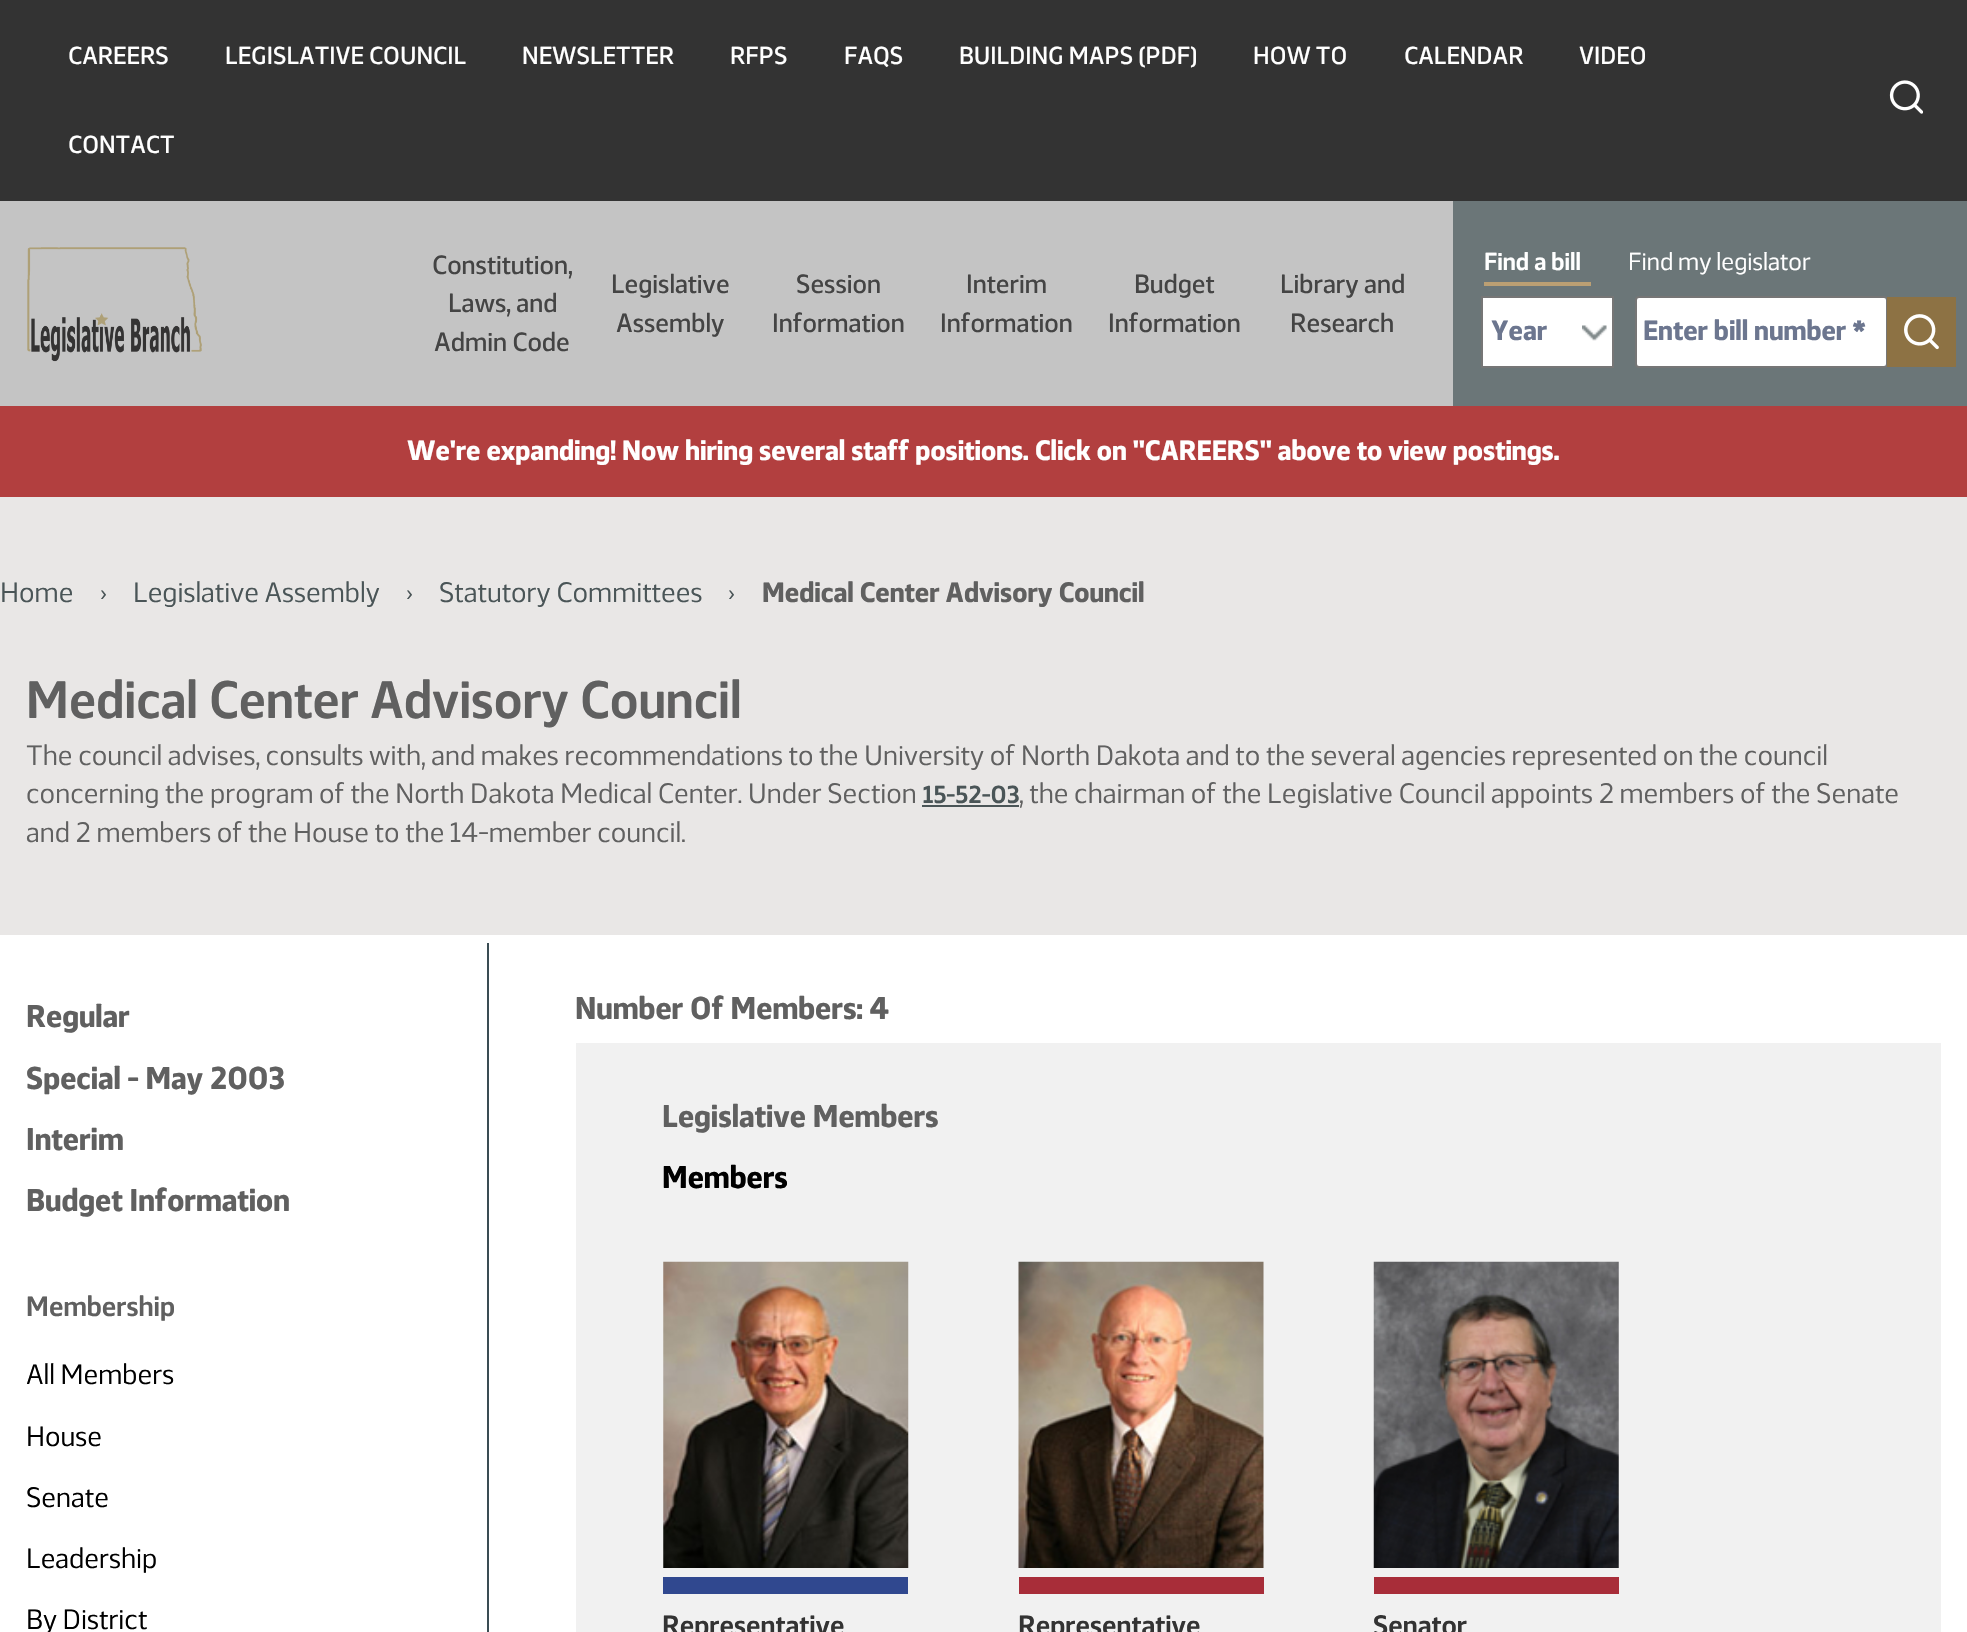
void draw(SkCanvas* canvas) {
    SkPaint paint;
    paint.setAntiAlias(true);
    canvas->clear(0xFFFFFFFF);
    paint.setColor(0xFF333333);
    canvas->drawRect(SkRect::MakeXYWH(0, 0, 1967, 201), paint);
    SkFont font1(fontMgr->matchFamilyStyle("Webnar", SkFontStyle(500, SkFontStyle::kNormal_Width, SkFontStyle::kUpright_Slant)), 24.5f);
    font1.setSubpixel(true);
    paint.setColor(0xFFFFFFFF);
    canvas->drawString("CAREERS", 68, 64, font1, paint);
    canvas->drawString("LEGISLATIVE COUNCIL", 225, 64, font1, paint);
    canvas->drawString("NEWSLETTER", 522, 64, font1, paint);
    canvas->drawString("RFPS", 730, 64, font1, paint);
    canvas->drawString("FAQS", 844, 64, font1, paint);
    canvas->drawString("BUILDING MAPS (PDF)", 959, 64, font1, paint);
    canvas->drawString("HOW TO", 1253, 64, font1, paint);
    canvas->drawString("CALENDAR", 1404, 64, font1, paint);
    canvas->drawString("VIDEO", 1579, 64, font1, paint);
    canvas->drawString("CONTACT", 68, 153, font1, paint);
    canvas->drawImageRect(SkImages::DeferredFromEncodedData(SkData::MakeFromFileName("img1.png")), SkRect::MakeXYWH(1889, 80, 34, 34), SkSamplingOptions());
    paint.setColor(0xFFC4C4C4);
    canvas->drawRect(SkRect::MakeXYWH(0, 201, 1453, 205), paint);
    canvas->drawImageRect(SkImages::DeferredFromEncodedData(SkData::MakeFromFileName("img2.png")), SkRect::MakeXYWH(27, 247, 175, 115), SkSamplingOptions());
    SkFont font2(fontMgr->matchFamilyStyle("Webnar", SkFontStyle(500, SkFontStyle::kNormal_Width, SkFontStyle::kUpright_Slant)), 26.25f);
    font2.setSubpixel(true);
    paint.setColor(0xFF444444);
    canvas->drawString("Constitution,", 432, 274, font2, paint);
    canvas->drawString("Laws, and", 448, 312, font2, paint);
    canvas->drawString("Admin Code", 434, 351, font2, paint);
    canvas->drawString("Legislative", 611, 293, font2, paint);
    canvas->drawString("Assembly", 616, 332, font2, paint);
    canvas->drawString("Session", 796, 293, font2, paint);
    canvas->drawString("Information", 772, 332, font2, paint);
    canvas->drawString("Interim", 966, 293, font2, paint);
    canvas->drawString("Information", 940, 332, font2, paint);
    canvas->drawString("Budget", 1134, 293, font2, paint);
    canvas->drawString("Information", 1108, 332, font2, paint);
    canvas->drawString("Library and", 1280, 293, font2, paint);
    canvas->drawString("Research", 1290, 332, font2, paint);
    paint.setColor(0xFF6B7678);
    canvas->drawRect(SkRect::MakeXYWH(1453, 201, 514, 205), paint);
    paint.setColor(0xFFBB9F73);
    canvas->drawRect(SkRect::MakeXYWH(1484, 282, 107, 4), paint);
    SkFont font3(fontMgr->matchFamilyStyle("Webnar", SkFontStyle(600, SkFontStyle::kNormal_Width, SkFontStyle::kUpright_Slant)), 24.5f);
    font3.setSubpixel(true);
    paint.setColor(0xFFFFFFFF);
    canvas->drawString("Find a bill", 1484, 270, font3, paint);
    SkFont font4(fontMgr->matchFamilyStyle("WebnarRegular", SkFontStyle::Normal()), 24.5f);
    font4.setSubpixel(true);
    canvas->drawString("Find my legislator", 1628, 270, font4, paint);
    canvas->drawRect(SkRect::MakeXYWH(1483, 298, 129, 68), paint);
    canvas->drawImageRect(SkImages::DeferredFromEncodedData(SkData::MakeFromFileName("img3.png")), SkRect::MakeXYWH(1582, 325, 25, 16), SkSamplingOptions());
    paint.setStyle(SkPaint::kStroke_Style);
    paint.setStrokeWidth(2);
    paint.setColor(0xFF767676);
    canvas->drawRect(SkRect::MakeXYWH(1482, 297, 131, 70), paint);
    SkFont font5(fontMgr->matchFamilyStyle("Webnar", SkFontStyle::Bold()), 28);
    font5.setSubpixel(true);
    paint.setStyle(SkPaint::kFill_Style);
    paint.setColor(0xFF6C768F);
    canvas->drawString("Year", 1491, 340, font5, paint);
    paint.setColor(0xFFFFFFFF);
    canvas->drawRoundRect(SkRect::MakeXYWH(1636, 297, 251, 70), 3, 3, paint);
    paint.setStyle(SkPaint::kStroke_Style);
    paint.setColor(0xFF767676);
    canvas->drawRoundRect(SkRect::MakeXYWH(1636, 297, 251, 70), 3, 3, paint);
    paint.setStyle(SkPaint::kFill_Style);
    paint.setColor(0xFF6C768F);
    canvas->drawString("Enter bill number *", 1643, 340, font5, paint);
    canvas->drawImageRect(SkImages::DeferredFromEncodedData(SkData::MakeFromFileName("img4.png")), SkRect::MakeXYWH(1887, 297, 69, 70), SkSamplingOptions());
    paint.setColor(0xFFB23F3F);
    canvas->drawRect(SkRect::MakeXYWH(0, 406, 1967, 91), paint);
    paint.setColor(0xFFFFFFFF);
    canvas->drawString("We're expanding! Now hiring several staff positions. Click on \"CAREERS\" above to view postings.", 407, 460, font5, paint);
    paint.setColor(0xFFE9E7E6);
    canvas->drawRect(SkRect::MakeXYWH(0, 497, 1967, 438), paint);
    SkFont font6(fontMgr->matchFamilyStyle("WebnarRegular", SkFontStyle::Normal()), 28);
    font6.setSubpixel(true);
    paint.setColor(0xFF4A5557);
    canvas->drawString("Home", 0, 602, font6, paint);
    canvas->drawString("›", 100, 602, font6, paint);
    canvas->drawString("Legislative Assembly", 133, 602, font6, paint);
    canvas->drawString("›", 406, 602, font6, paint);
    canvas->drawString("Statutory Committees", 439, 602, font6, paint);
    canvas->drawString("›", 728, 602, font6, paint);
    paint.setColor(0xFF606060);
    canvas->drawString("Medical Center Advisory Council", 762, 602, font5, paint);
    SkFont font7(fontMgr->matchFamilyStyle("Webnar", SkFontStyle(600, SkFontStyle::kNormal_Width, SkFontStyle::kUpright_Slant)), 52.5f);
    font7.setSubpixel(true);
    canvas->drawString("Medical Center Advisory Council", 26, 718, font7, paint);
    canvas->drawString("The council advises, consults with, and makes recommendations to the University of North Dakota and to the several agencies represented on the council", 26, 765, font6, paint);
    canvas->drawString("concerning the program of the North Dakota Medical Center. Under Section", 26, 803, font6, paint);
    paint.setColor(0xFF4A5557);
    canvas->drawString("15-52-03", 923, 803, font3, paint);
    canvas->drawRect(SkRect::MakeXYWH(922, 805, 97, 2), paint);
    paint.setColor(0xFF606060);
    canvas->drawString(", the chairman of the Legislative Council appoints 2 members of the Senate", 1019, 803, font6, paint);
    canvas->drawString("and 2 members of the House to the 14-member council.", 26, 842, font6, paint);
    SkFont font8(fontMgr->matchFamilyStyle("Webnar", SkFontStyle::Bold()), 31.5f);
    font8.setSubpixel(true);
    canvas->drawString("Regular", 26, 1027, font8, paint);
    canvas->drawString("Special - May 2003", 26, 1089, font8, paint);
    canvas->drawString("Interim", 26, 1150, font8, paint);
    canvas->drawString("Budget Information", 26, 1211, font8, paint);
    SkFont font9(fontMgr->matchFamilyStyle("Webnar", SkFontStyle(600, SkFontStyle::kNormal_Width, SkFontStyle::kUpright_Slant)), 28);
    font9.setSubpixel(true);
    canvas->drawString("Membership", 26, 1316, font9, paint);
    paint.setColor(0xFF000000);
    canvas->drawString("All Members", 26, 1384, font6, paint);
    canvas->drawString("House", 26, 1446, font6, paint);
    canvas->drawString("Senate", 26, 1507, font6, paint);
    canvas->drawString("Leadership", 26, 1568, font6, paint);
    canvas->drawString("By District", 26, 1629, font6, paint);
    paint.setColor(0xFF3A4C53);
    canvas->drawRect(SkRect::MakeXYWH(487, 943, 2, 689), paint);
    paint.setColor(0xFF606060);
    canvas->drawString("Number Of Members: 4", 575, 1019, font8, paint);
    paint.setColor(0xFFF1F1F1);
    canvas->drawRect(SkRect::MakeXYWH(576, 1043, 1365, 589), paint);
    paint.setColor(0xFF606060);
    canvas->drawString("Legislative Members", 662, 1127, font8, paint);
    paint.setColor(0xFF000000);
    canvas->drawString("Members", 662, 1188, font8, paint);
    canvas->drawImageRect(SkImages::DeferredFromEncodedData(SkData::MakeFromFileName("img5.png")), SkRect::MakeXYWH(663, 1261, 246, 307), SkSamplingOptions());
    paint.setColor(0xFF30488F);
    canvas->drawRect(SkRect::MakeXYWH(663, 1577, 245, 17), paint);
    paint.setColor(0xFF333333);
    canvas->drawString("Representative", 662, 1635, font9, paint);
    canvas->drawImageRect(SkImages::DeferredFromEncodedData(SkData::MakeFromFileName("img6.png")), SkRect::MakeXYWH(1018, 1261, 246, 307), SkSamplingOptions());
    paint.setColor(0xFFA82D39);
    canvas->drawRect(SkRect::MakeXYWH(1019, 1577, 245, 17), paint);
    paint.setColor(0xFF333333);
    canvas->drawString("Representative", 1018, 1635, font9, paint);
    canvas->drawImageRect(SkImages::DeferredFromEncodedData(SkData::MakeFromFileName("img7.png")), SkRect::MakeXYWH(1373, 1261, 246, 307), SkSamplingOptions());
    paint.setColor(0xFFA82D39);
    canvas->drawRect(SkRect::MakeXYWH(1374, 1577, 245, 17), paint);
    paint.setColor(0xFF333333);
    canvas->drawString("Senator", 1373, 1635, font9, paint);
}
